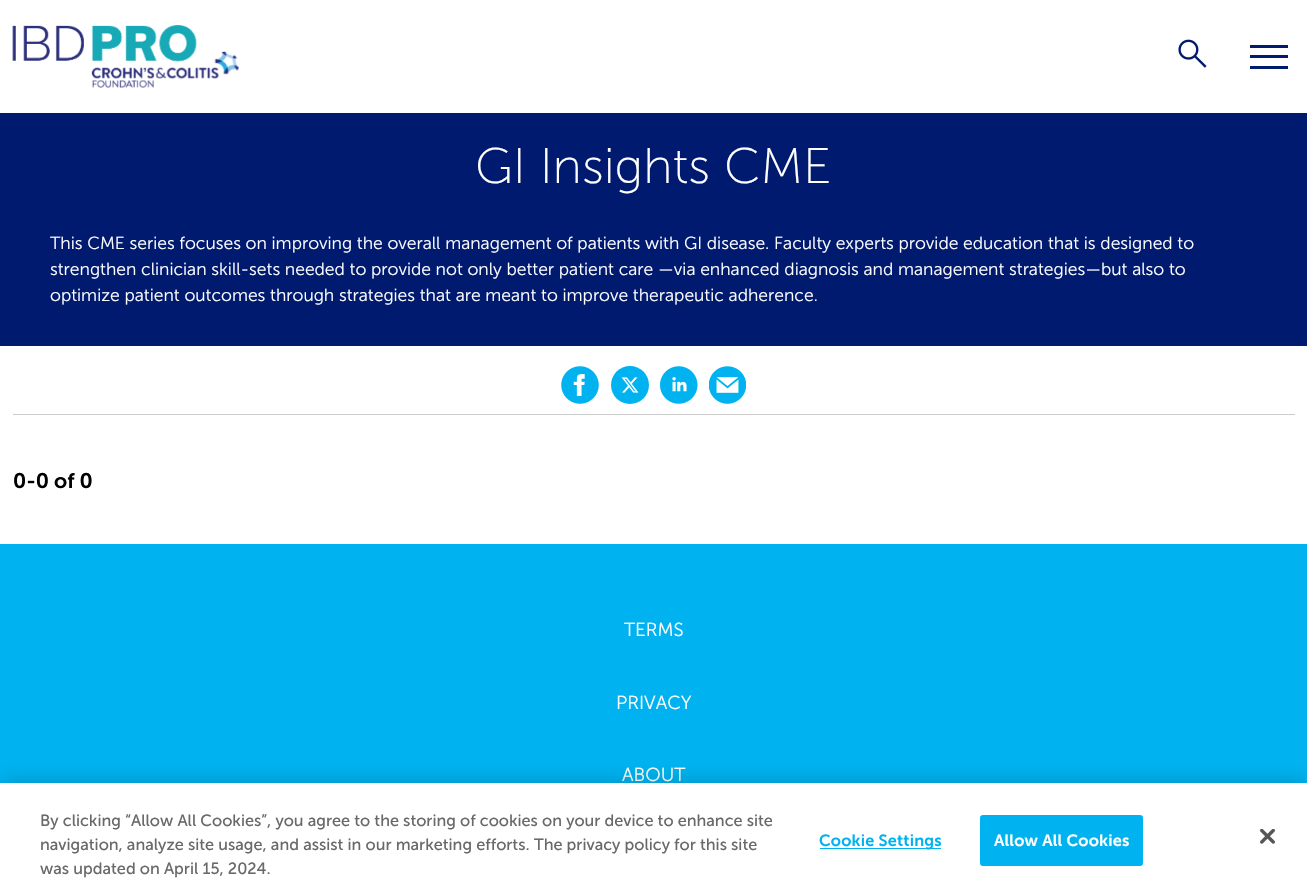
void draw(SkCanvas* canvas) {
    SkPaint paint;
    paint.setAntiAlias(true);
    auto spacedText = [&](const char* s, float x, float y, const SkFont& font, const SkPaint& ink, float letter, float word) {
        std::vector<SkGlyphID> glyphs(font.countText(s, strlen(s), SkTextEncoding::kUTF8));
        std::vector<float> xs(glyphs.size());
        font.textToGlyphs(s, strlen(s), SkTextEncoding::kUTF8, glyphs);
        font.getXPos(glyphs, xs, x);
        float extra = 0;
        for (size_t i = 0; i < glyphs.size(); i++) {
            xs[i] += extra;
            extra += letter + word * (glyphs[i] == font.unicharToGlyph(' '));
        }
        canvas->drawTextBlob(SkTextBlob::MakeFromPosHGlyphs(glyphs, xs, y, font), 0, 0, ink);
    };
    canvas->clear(0xFFFFFFFF);
    canvas->drawImageRect(SkImages::DeferredFromEncodedData(SkData::MakeFromFileName("img1.png")), SkRect::MakeXYWH(12, 25, 227, 63), SkSamplingOptions());
    canvas->drawImageRect(SkImages::DeferredFromEncodedData(SkData::MakeFromFileName("img2.png")), SkRect::MakeXYWH(1178, 39, 29, 29), SkSamplingOptions());
    paint.setColor(0xFF001A70);
    canvas->drawRect(SkRect::MakeXYWH(1250, 45, 38, 3), paint);
    canvas->drawRect(SkRect::MakeXYWH(1250, 55, 38, 3), paint);
    canvas->drawRect(SkRect::MakeXYWH(1250, 66, 38, 3), paint);
    canvas->drawRect(SkRect::MakeXYWH(0, 113, 1307, 233), paint);
    SkFont font1(fontMgr->matchFamilyStyle("Museo Sans", SkFontStyle(200, SkFontStyle::kNormal_Width, SkFontStyle::kUpright_Slant)), 50);
    font1.setSubpixel(true);
    paint.setColor(0xFFFFFFFF);
    canvas->drawString("GI Insights CME", 475, 183, font1, paint);
    SkFont font2(fontMgr->matchFamilyStyle("Museo Sans", SkFontStyle(300, SkFontStyle::kNormal_Width, SkFontStyle::kUpright_Slant)), 17.5f);
    font2.setSubpixel(true);
    canvas->drawString("This CME series focuses on improving the overall management of patients with GI disease. Faculty experts provide education that is designed to", 50, 249, font2, paint);
    canvas->drawString("strengthen clinician skill-sets needed to provide not only better patient care —via enhanced diagnosis and management strategies—but also to", 50, 275, font2, paint);
    canvas->drawString("optimize patient outcomes through strategies that are meant to improve therapeutic adherence.", 50, 301, font2, paint);
    paint.setColor(0xFFCCCCCC);
    canvas->drawRect(SkRect::MakeXYWH(13, 414, 1282, 1), paint);
    canvas->drawImageRect(SkImages::DeferredFromEncodedData(SkData::MakeFromFileName("img3.png")), SkRect::MakeXYWH(561, 366, 38, 38), SkSamplingOptions());
    paint.setColor(0xFF00B3F0);
    canvas->drawCircle(630, 385, 19, paint);
    canvas->drawImageRect(SkImages::DeferredFromEncodedData(SkData::MakeFromFileName("img4.png")), SkRect::MakeXYWH(621, 377, 18, 16), SkSamplingOptions());
    canvas->drawImageRect(SkImages::DeferredFromEncodedData(SkData::MakeFromFileName("img5.png")), SkRect::MakeXYWH(660, 366, 38, 38), SkSamplingOptions());
    canvas->drawImageRect(SkImages::DeferredFromEncodedData(SkData::MakeFromFileName("img6.png")), SkRect::MakeXYWH(709, 366, 37, 38), SkSamplingOptions());
    SkFont font3(fontMgr->matchFamilyStyle("Museo Sans", SkFontStyle(600, SkFontStyle::kNormal_Width, SkFontStyle::kUpright_Slant)), 21);
    font3.setSubpixel(true);
    paint.setColor(0xFF000000);
    canvas->drawString("0-0 of 0", 13, 488, font3, paint);
    paint.setColor(0xFF00B3F0);
    canvas->drawRect(SkRect::MakeXYWH(0, 544, 1307, 239), paint);
    SkFont font4(fontMgr->matchFamilyStyle("Museo Sans", SkFontStyle(300, SkFontStyle::kNormal_Width, SkFontStyle::kUpright_Slant)), 18.75f);
    font4.setSubpixel(true);
    paint.setColor(0xFFFFFFFF);
    canvas->drawString("TERMS", 624, 636, font4, paint);
    canvas->drawString("PRIVACY", 616, 709, font4, paint);
    canvas->drawString("ABOUT", 622, 781, font4, paint);
    paint.setColor(0x33000000);
    paint.setMaskFilter(SkMaskFilter::MakeBlur(kNormal_SkBlurStyle, 11));
    canvas->drawRect(SkRect::MakeXYWH(0, 783, 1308, 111), paint);
    paint.setMaskFilter(nullptr);
    paint.setColor(0xFFFFFFFF);
    canvas->drawRect(SkRect::MakeXYWH(0, 783, 1307, 110), paint);
    SkFont font5(fontMgr->matchFamilyStyle("Museo Sans", SkFontStyle::Normal()), 16.25f);
    font5.setSubpixel(true);
    paint.setColor(0xFF696969);
    canvas->drawString("By clicking “Allow All Cookies”, you agree to the storing of cookies on your device to enhance site", 40, 826, font5, paint);
    canvas->drawString("navigation, analyze site usage, and assist in our marketing efforts.", 40, 850, font5, paint);
    canvas->drawString("The privacy policy for this site", 534, 850, font5, paint);
    canvas->drawString("was updated on April 15, 2024.", 40, 874, font5, paint);
    paint.setColor(0xFF00B3F0);
    canvas->drawRect(SkRect::MakeXYWH(820, 848, 121, 1), paint);
    SkFont font6(fontMgr->matchFamilyStyle("Museo Sans", SkFontStyle(600, SkFontStyle::kNormal_Width, SkFontStyle::kUpright_Slant)), 16.25f);
    font6.setSubpixel(true);
    spacedText("Cookie Settings", 819, 846, font6, paint, 0.2f, 0);
    canvas->drawRoundRect(SkRect::MakeXYWH(980.5f, 815.5f, 162, 50), 2, 2, paint);
    paint.setStyle(SkPaint::kStroke_Style);
    paint.setStrokeWidth(1);
    canvas->drawRoundRect(SkRect::MakeXYWH(980.5f, 815.5f, 162, 50), 2, 2, paint);
    paint.setStyle(SkPaint::kFill_Style);
    paint.setColor(0xFFFFFFFF);
    spacedText("Allow All Cookies", 994, 846, font6, paint, 0.2f, 0);
    canvas->drawImageRect(SkImages::DeferredFromEncodedData(SkData::MakeFromFileName("img7.png")), SkRect::MakeXYWH(1260, 829, 15, 15), SkSamplingOptions());
}
